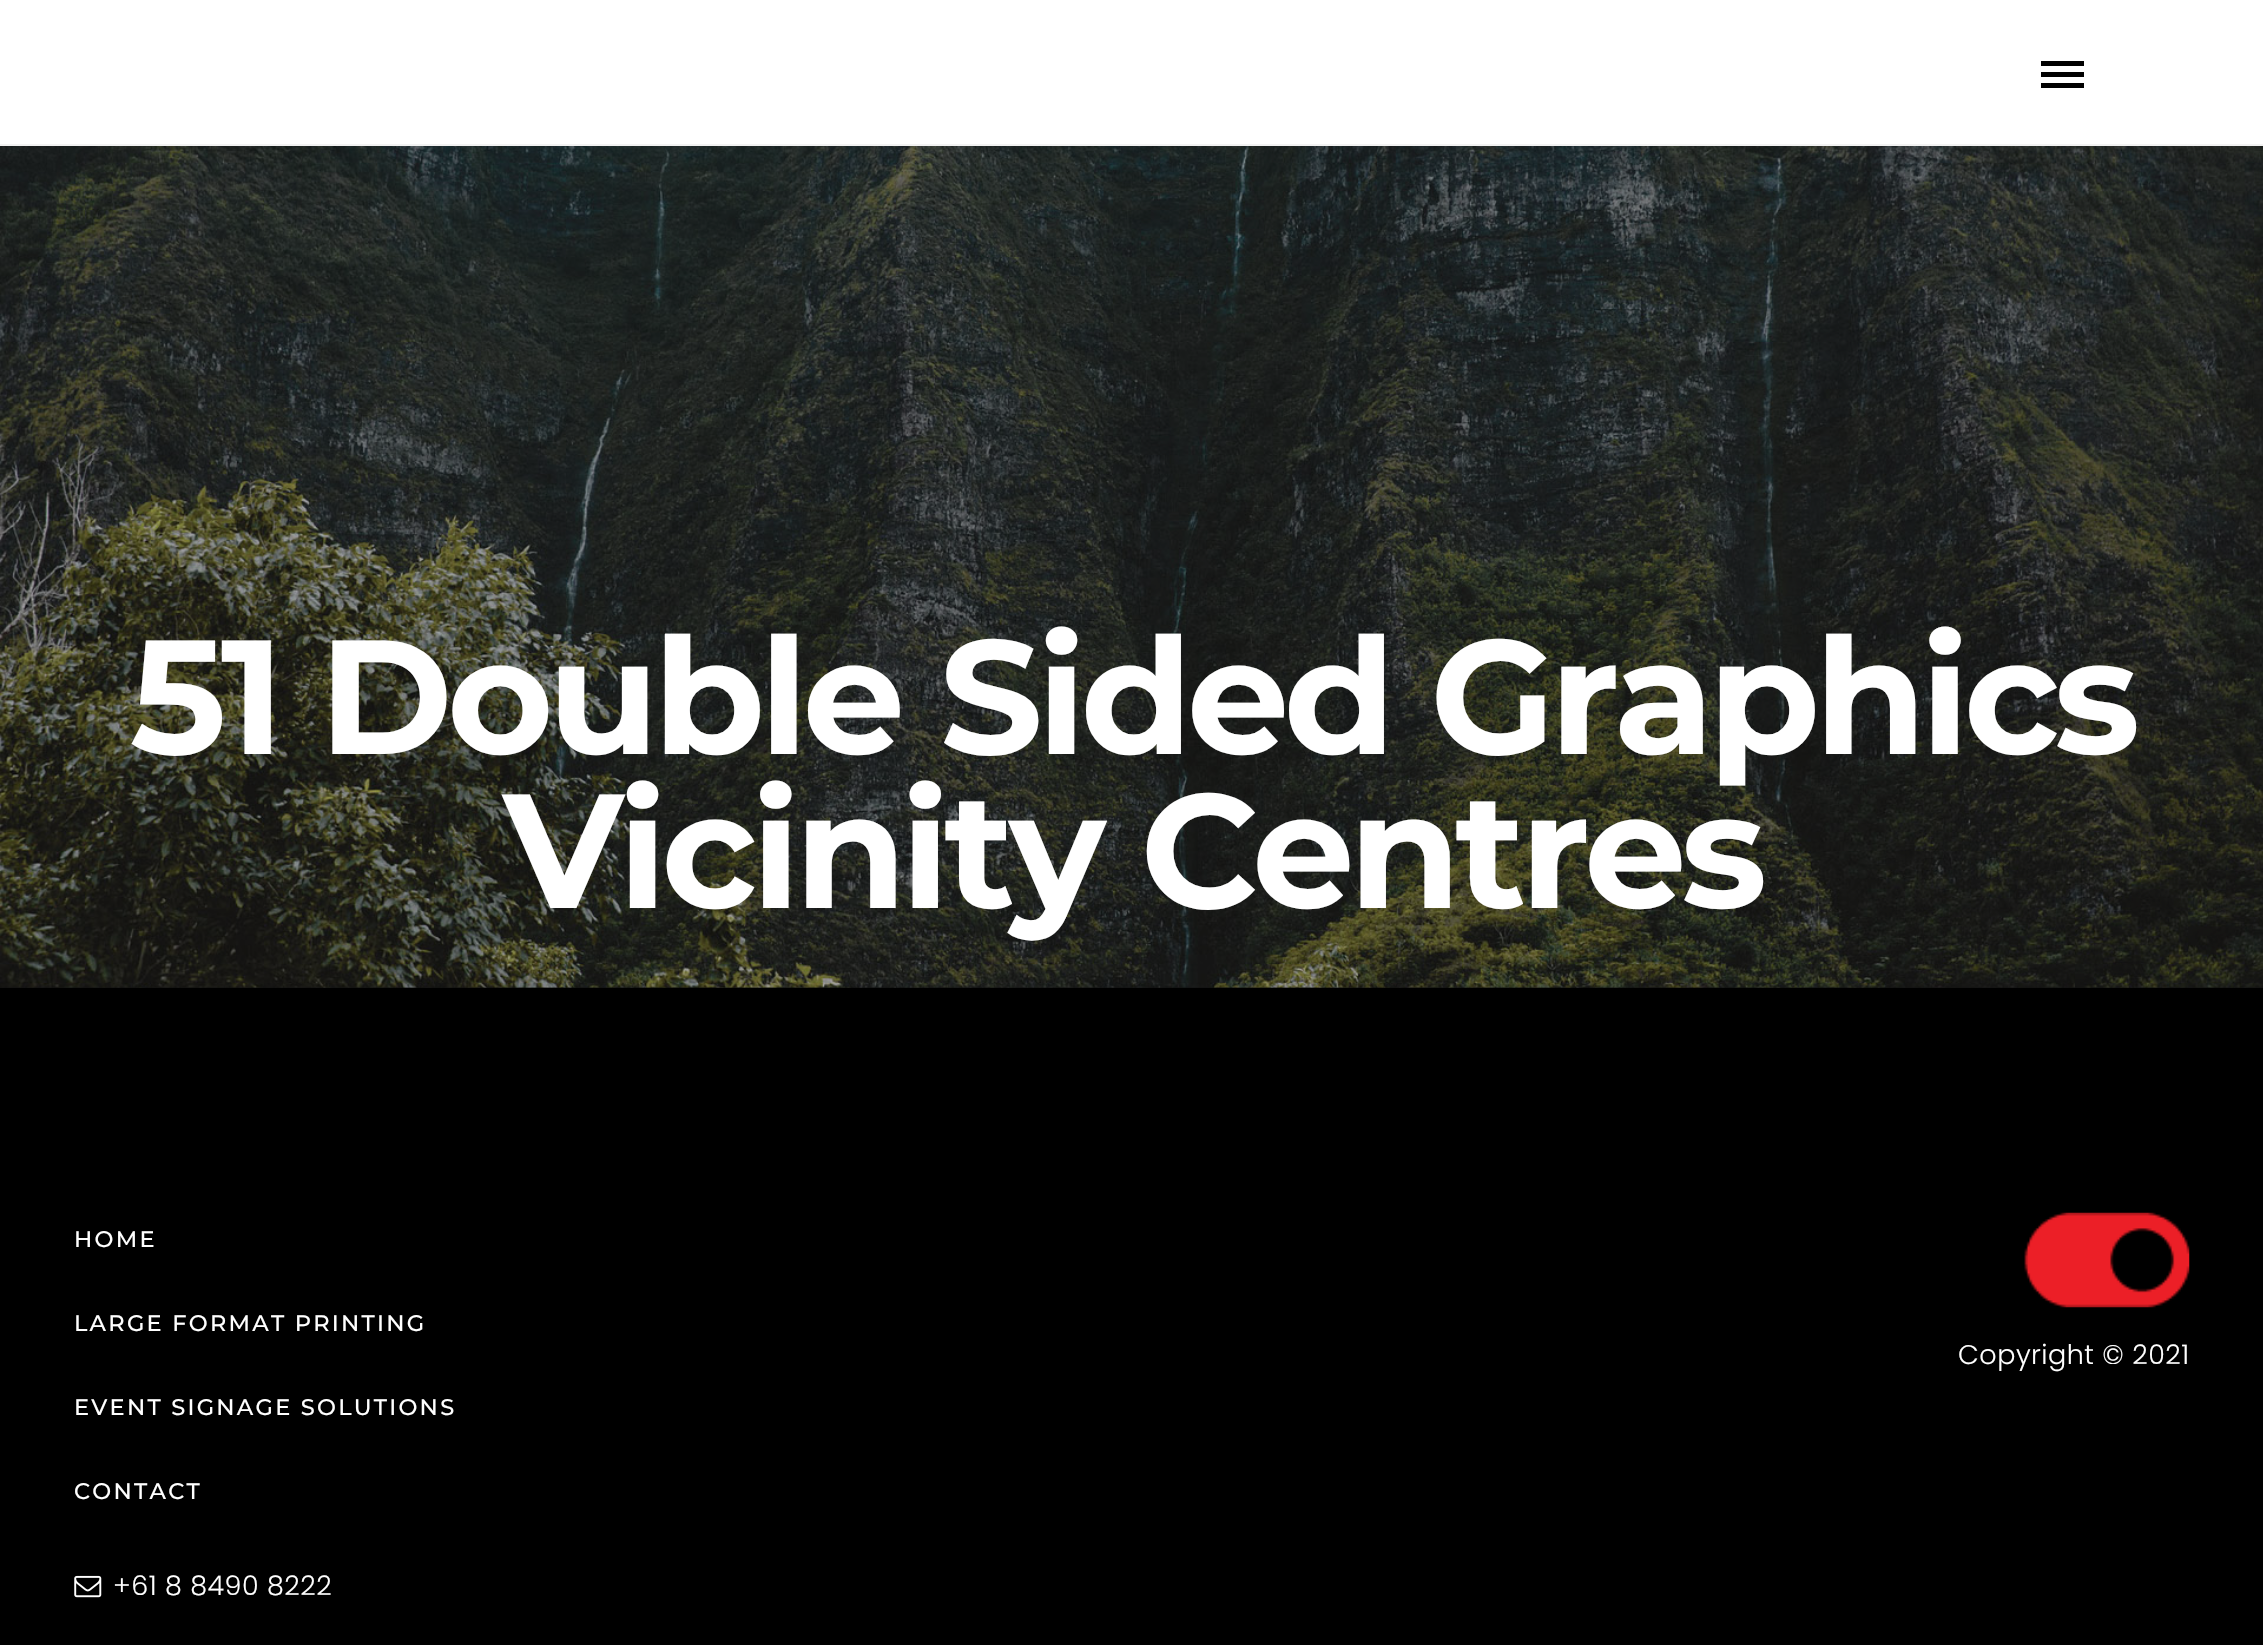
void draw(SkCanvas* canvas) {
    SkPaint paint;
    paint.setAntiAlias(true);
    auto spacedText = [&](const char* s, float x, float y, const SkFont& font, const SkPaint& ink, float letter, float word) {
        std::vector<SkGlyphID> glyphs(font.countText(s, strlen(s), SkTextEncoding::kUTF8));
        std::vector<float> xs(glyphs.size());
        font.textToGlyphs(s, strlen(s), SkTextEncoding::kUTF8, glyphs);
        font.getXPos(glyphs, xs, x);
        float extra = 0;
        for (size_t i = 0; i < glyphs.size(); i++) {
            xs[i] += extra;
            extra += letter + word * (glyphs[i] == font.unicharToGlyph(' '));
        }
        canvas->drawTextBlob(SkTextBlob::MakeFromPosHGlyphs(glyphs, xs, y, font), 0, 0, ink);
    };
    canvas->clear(0xFF000000);
    paint.setColor(0xFFFFFFFF);
    canvas->drawRect(SkRect::MakeXYWH(0, 0, 2263, 144), paint);
    paint.setColor(0xFFF2F2F2);
    canvas->drawRect(SkRect::MakeXYWH(0, 144, 2263, 2), paint);
    paint.setColor(0xFF000000);
    canvas->drawRect(SkRect::MakeXYWH(2041, 61, 43, 5), paint);
    canvas->drawRect(SkRect::MakeXYWH(2041, 72, 43, 5), paint);
    canvas->drawRect(SkRect::MakeXYWH(2041, 83, 43, 5), paint);
    paint.setColor(0xFF121212);
    canvas->drawRect(SkRect::MakeXYWH(0, 987, 2263, 1), paint);
    canvas->drawImageRect(SkImages::DeferredFromEncodedData(SkData::MakeFromFileName("img1.png")), SkRect::MakeXYWH(0, 146, 2263, 842), SkSamplingOptions());
    SkFont font1(fontMgr->matchFamilyStyle("Montserrat", SkFontStyle::Bold()), 162);
    font1.setSubpixel(true);
    paint.setColor(0xFFFFFFFF);
    spacedText("51 Double Sided Graphics", 130, 754, font1, paint, -5.6f, 0);
    spacedText("Vicinity Centres", 503, 908, font1, paint, -5.6f, 0);
    SkFont font2(fontMgr->matchFamilyStyle("Montserrat", SkFontStyle(500, SkFontStyle::kNormal_Width, SkFontStyle::kUpright_Slant)), 22.5f);
    font2.setSubpixel(true);
    spacedText("HOME", 74, 1247, font2, paint, 2.25f, 0);
    spacedText("LARGE FORMAT PRINTING", 74, 1331, font2, paint, 2.25f, 0);
    spacedText("EVENT SIGNAGE SOLUTIONS", 74, 1415, font2, paint, 2.25f, 0);
    spacedText("CONTACT", 74, 1499, font2, paint, 2.25f, 0);
    canvas->drawImageRect(SkImages::DeferredFromEncodedData(SkData::MakeFromFileName("img2.png")), SkRect::MakeXYWH(74, 1575, 28, 23), SkSamplingOptions());
    SkFont font3(fontMgr->matchFamilyStyle("Poppins", SkFontStyle(300, SkFontStyle::kNormal_Width, SkFontStyle::kUpright_Slant)), 27);
    font3.setSubpixel(true);
    spacedText("+61 8 8490 8222", 113, 1595, font3, paint, 0.5f, 0);
    canvas->drawImageRect(SkImages::DeferredFromEncodedData(SkData::MakeFromFileName("img3.png")), SkRect::MakeXYWH(2024, 1212, 166, 96), SkSamplingOptions());
    spacedText("Copyright © 2021", 1958, 1364, font3, paint, 0.5f, 0);
}
